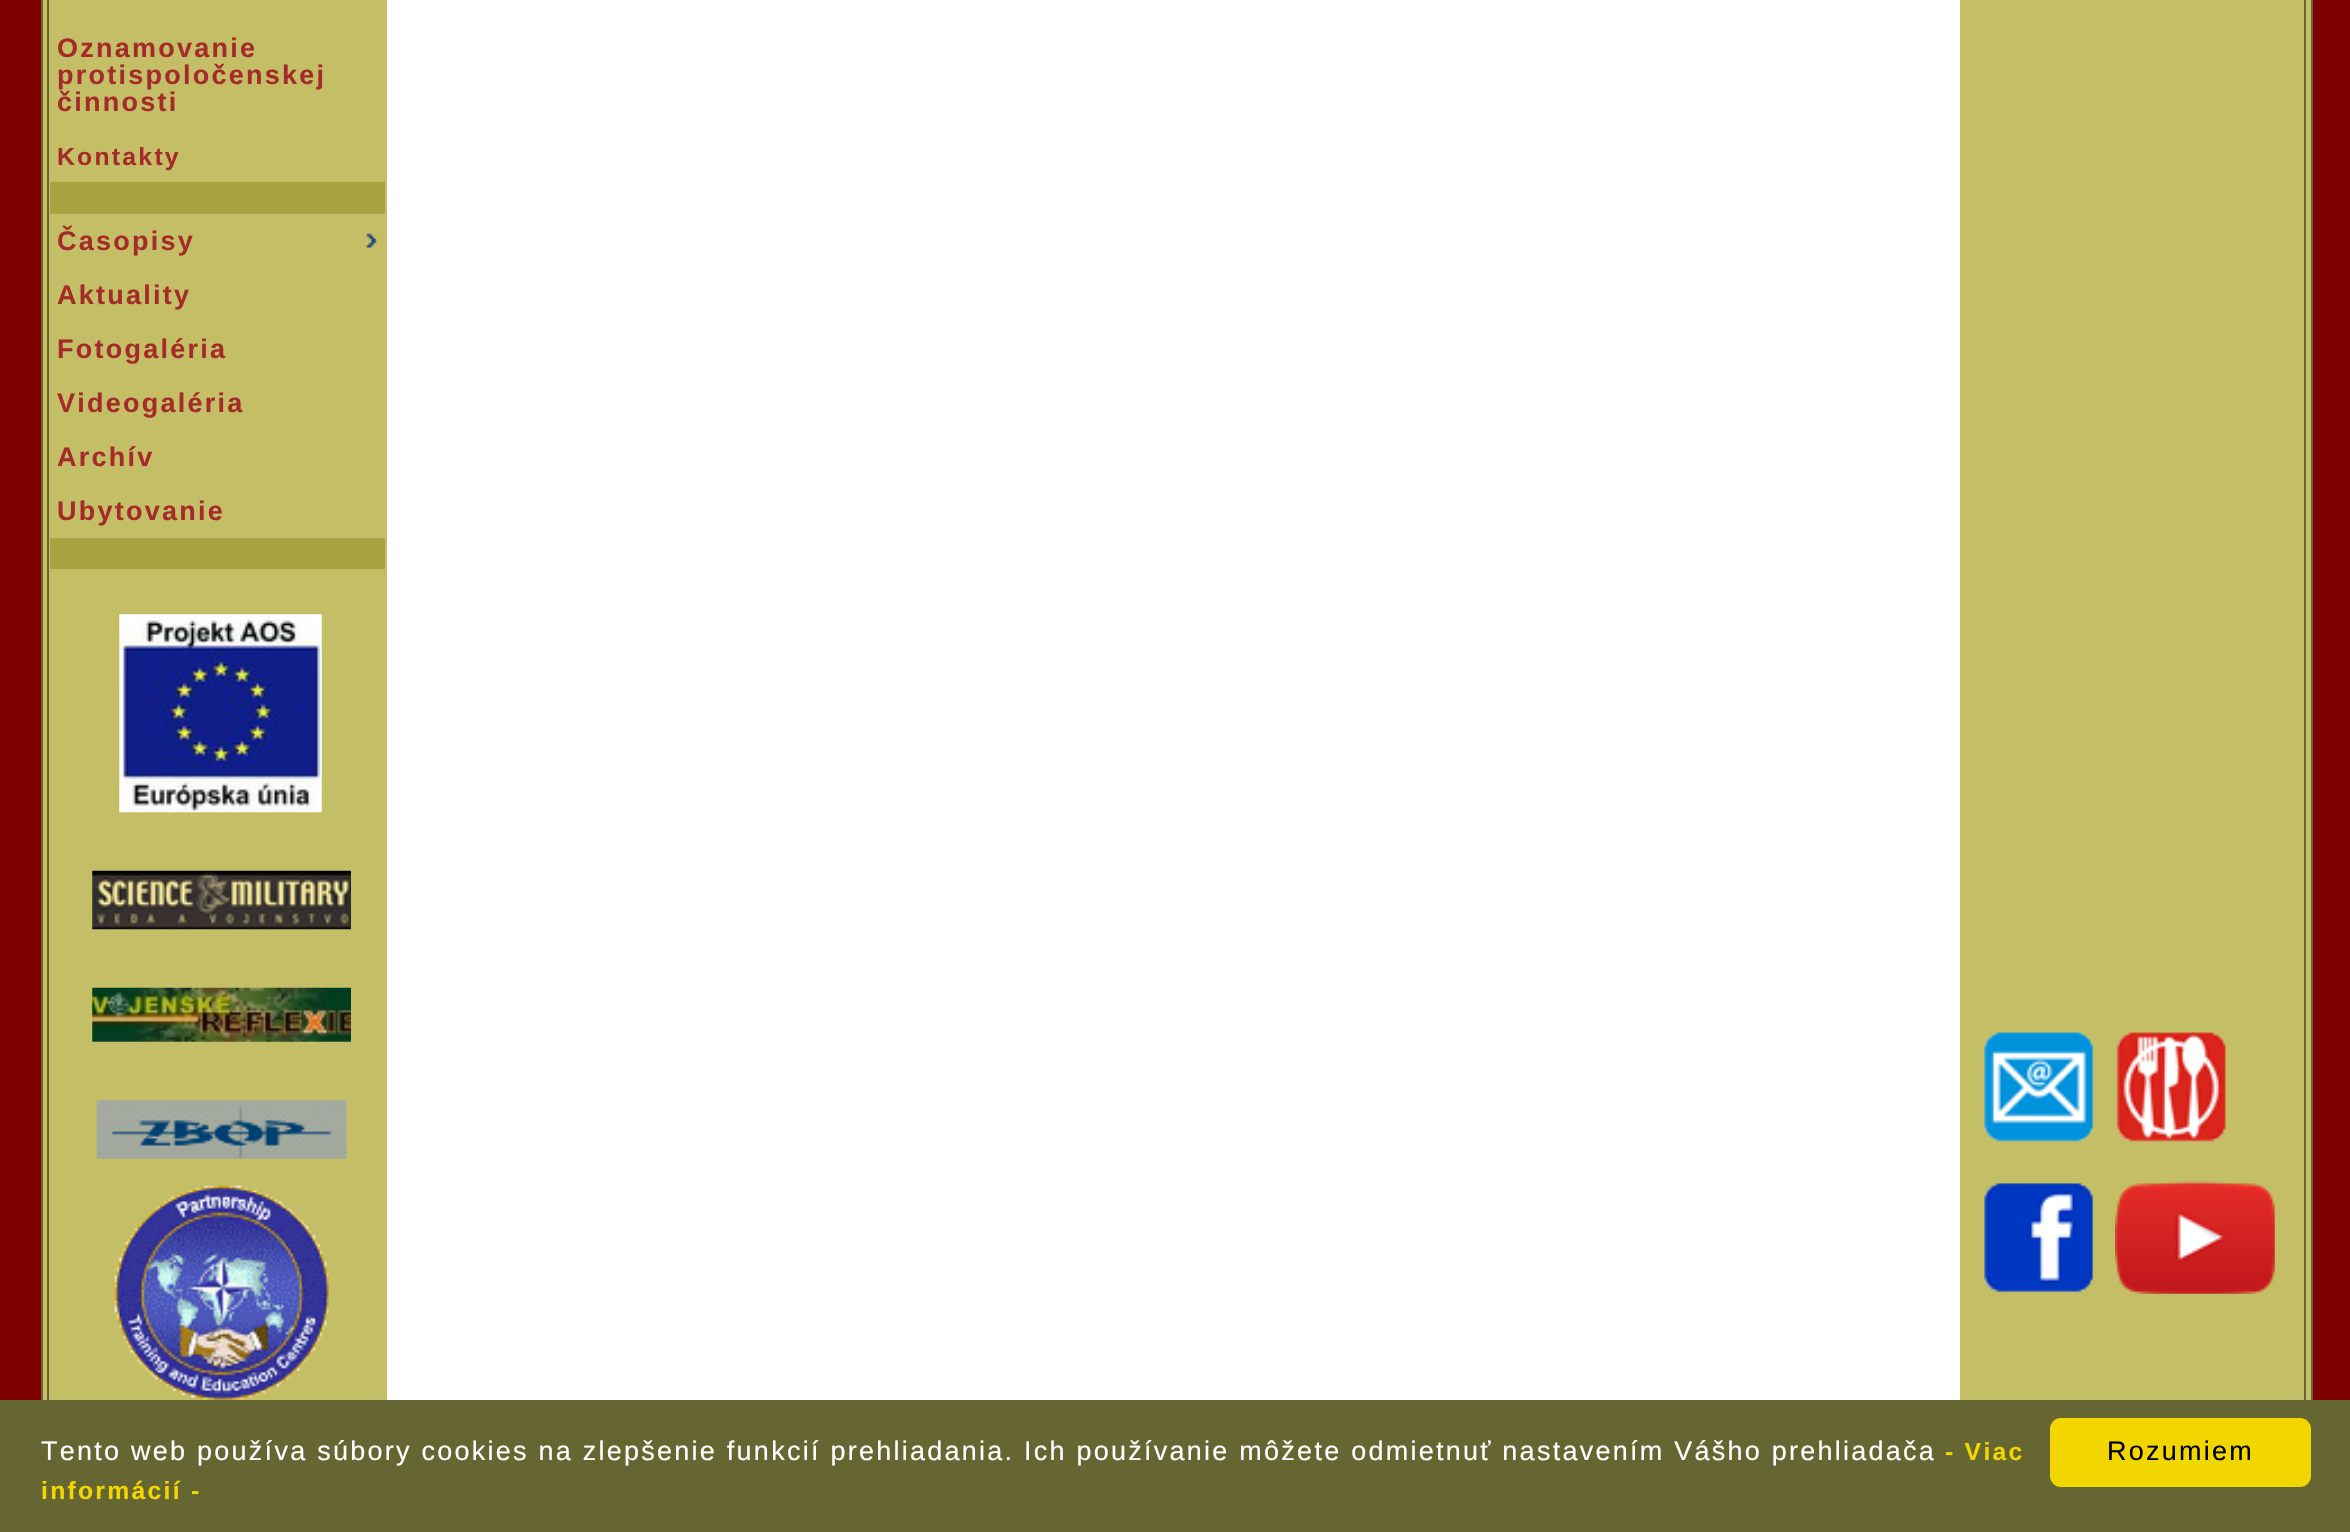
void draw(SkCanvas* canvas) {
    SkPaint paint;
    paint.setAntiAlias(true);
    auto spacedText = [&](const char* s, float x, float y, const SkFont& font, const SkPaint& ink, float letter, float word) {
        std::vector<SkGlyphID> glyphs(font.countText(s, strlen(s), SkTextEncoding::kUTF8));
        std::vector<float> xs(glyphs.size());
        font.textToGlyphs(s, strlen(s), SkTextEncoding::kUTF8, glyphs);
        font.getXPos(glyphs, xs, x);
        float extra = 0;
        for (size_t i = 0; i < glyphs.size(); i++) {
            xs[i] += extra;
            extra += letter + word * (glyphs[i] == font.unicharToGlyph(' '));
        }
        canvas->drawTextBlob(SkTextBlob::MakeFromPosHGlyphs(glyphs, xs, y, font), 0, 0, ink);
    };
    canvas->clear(0xFF800000);
    paint.setColor(0xFFC4BF66);
    canvas->drawRect(SkRect::MakeXYWH(43, 0, 344, 1400), paint);
    paint.setColor(0xFF666633);
    canvas->drawRect(SkRect::MakeXYWH(41, 0, 2, 1400), paint);
    canvas->drawRect(SkRect::MakeXYWH(47, 0, 2, 1400), paint);
    SkFont font1(fontMgr->matchFamilyStyle("Liberation Sans", SkFontStyle::Bold()), 27);
    font1.setSubpixel(true);
    paint.setColor(0xFFA52A2A);
    spacedText("Oznamovanie", 57, 57, font1, paint, 2.25f, 0);
    spacedText("protispoločenskej", 57, 84, font1, paint, 2.25f, 0);
    spacedText("činnosti", 57, 111, font1, paint, 2.25f, 0);
    SkFont font2(fontMgr->matchFamilyStyle("Liberation Sans", SkFontStyle::Bold()), 24.75f);
    font2.setSubpixel(true);
    spacedText("Kontakty", 57, 165, font2, paint, 2.25f, 0);
    paint.setColor(0xFFA9A441);
    canvas->drawRect(SkRect::MakeXYWH(50, 182, 335, 32), paint);
    canvas->drawImageRect(SkImages::DeferredFromEncodedData(SkData::MakeFromFileName("img1.png")), SkRect::MakeXYWH(366, 233, 11, 16), SkSamplingOptions());
    paint.setColor(0xFFA52A2A);
    spacedText("Časopisy", 57, 250, font1, paint, 2.25f, 0);
    spacedText("Aktuality", 57, 304, font1, paint, 2.25f, 0);
    spacedText("Fotogaléria", 57, 358, font1, paint, 2.25f, 0);
    spacedText("Videogaléria", 57, 412, font1, paint, 2.25f, 0);
    spacedText("Archív", 57, 466, font1, paint, 2.25f, 0);
    spacedText("Ubytovanie", 57, 520, font1, paint, 2.25f, 0);
    paint.setColor(0xFFA9A441);
    canvas->drawRect(SkRect::MakeXYWH(50, 538, 335, 31), paint);
    canvas->drawImageRect(SkImages::DeferredFromEncodedData(SkData::MakeFromFileName("img2.png")), SkRect::MakeXYWH(119, 614, 203, 199), SkSamplingOptions());
    canvas->drawImageRect(SkImages::DeferredFromEncodedData(SkData::MakeFromFileName("img3.png")), SkRect::MakeXYWH(92, 870, 259, 60), SkSamplingOptions());
    canvas->drawImageRect(SkImages::DeferredFromEncodedData(SkData::MakeFromFileName("img4.png")), SkRect::MakeXYWH(92, 987, 259, 55), SkSamplingOptions());
    canvas->drawImageRect(SkImages::DeferredFromEncodedData(SkData::MakeFromFileName("img5.png")), SkRect::MakeXYWH(96, 1100, 251, 59), SkSamplingOptions());
    canvas->drawImageRect(SkImages::DeferredFromEncodedData(SkData::MakeFromFileName("img6.png")), SkRect::MakeXYWH(114, 1185, 215, 215), SkSamplingOptions());
    paint.setColor(0xFFFFFFFF);
    canvas->drawRect(SkRect::MakeXYWH(387, 0, 1573, 1400), paint);
    paint.setColor(0xFFC4BF66);
    canvas->drawRect(SkRect::MakeXYWH(1960, 0, 351, 1400), paint);
    paint.setColor(0xFF666633);
    canvas->drawRect(SkRect::MakeXYWH(2304, 0, 2, 1400), paint);
    canvas->drawRect(SkRect::MakeXYWH(2311, 0, 2, 1400), paint);
    canvas->drawImageRect(SkImages::DeferredFromEncodedData(SkData::MakeFromFileName("img7.png")), SkRect::MakeXYWH(1984, 1032, 110, 110), SkSamplingOptions());
    canvas->drawImageRect(SkImages::DeferredFromEncodedData(SkData::MakeFromFileName("img8.png")), SkRect::MakeXYWH(2116, 1032, 110, 110), SkSamplingOptions());
    canvas->drawImageRect(SkImages::DeferredFromEncodedData(SkData::MakeFromFileName("img9.png")), SkRect::MakeXYWH(1984, 1183, 110, 110), SkSamplingOptions());
    canvas->drawImageRect(SkImages::DeferredFromEncodedData(SkData::MakeFromFileName("img10.png")), SkRect::MakeXYWH(2115, 1181, 160, 113), SkSamplingOptions());
    canvas->drawRect(SkRect::MakeXYWH(0, 1400, 2350, 132), paint);
    SkFont font3(fontMgr->matchFamilyStyle("Liberation Sans", SkFontStyle::Normal()), 27);
    font3.setSubpixel(true);
    paint.setColor(0xFFFFFFFF);
    spacedText("Tento web používa súbory cookies na zlepšenie funkcií prehliadania. Ich používanie môžete odmietnuť nastavením Vášho prehliadača", 41, 1460, font3, paint, 2.25f, 0);
    paint.setColor(0xFFF1D600);
    spacedText("- Viac", 1945, 1460, font2, paint, 2.25f, 0);
    spacedText("informácií -", 41, 1499, font2, paint, 2.25f, 0);
    canvas->drawRoundRect(SkRect::MakeXYWH(2050, 1418, 261, 69), 11, 11, paint);
    paint.setColor(0xFF000000);
    spacedText("Rozumiem", 2107, 1460, font3, paint, 2.25f, 0);
}
